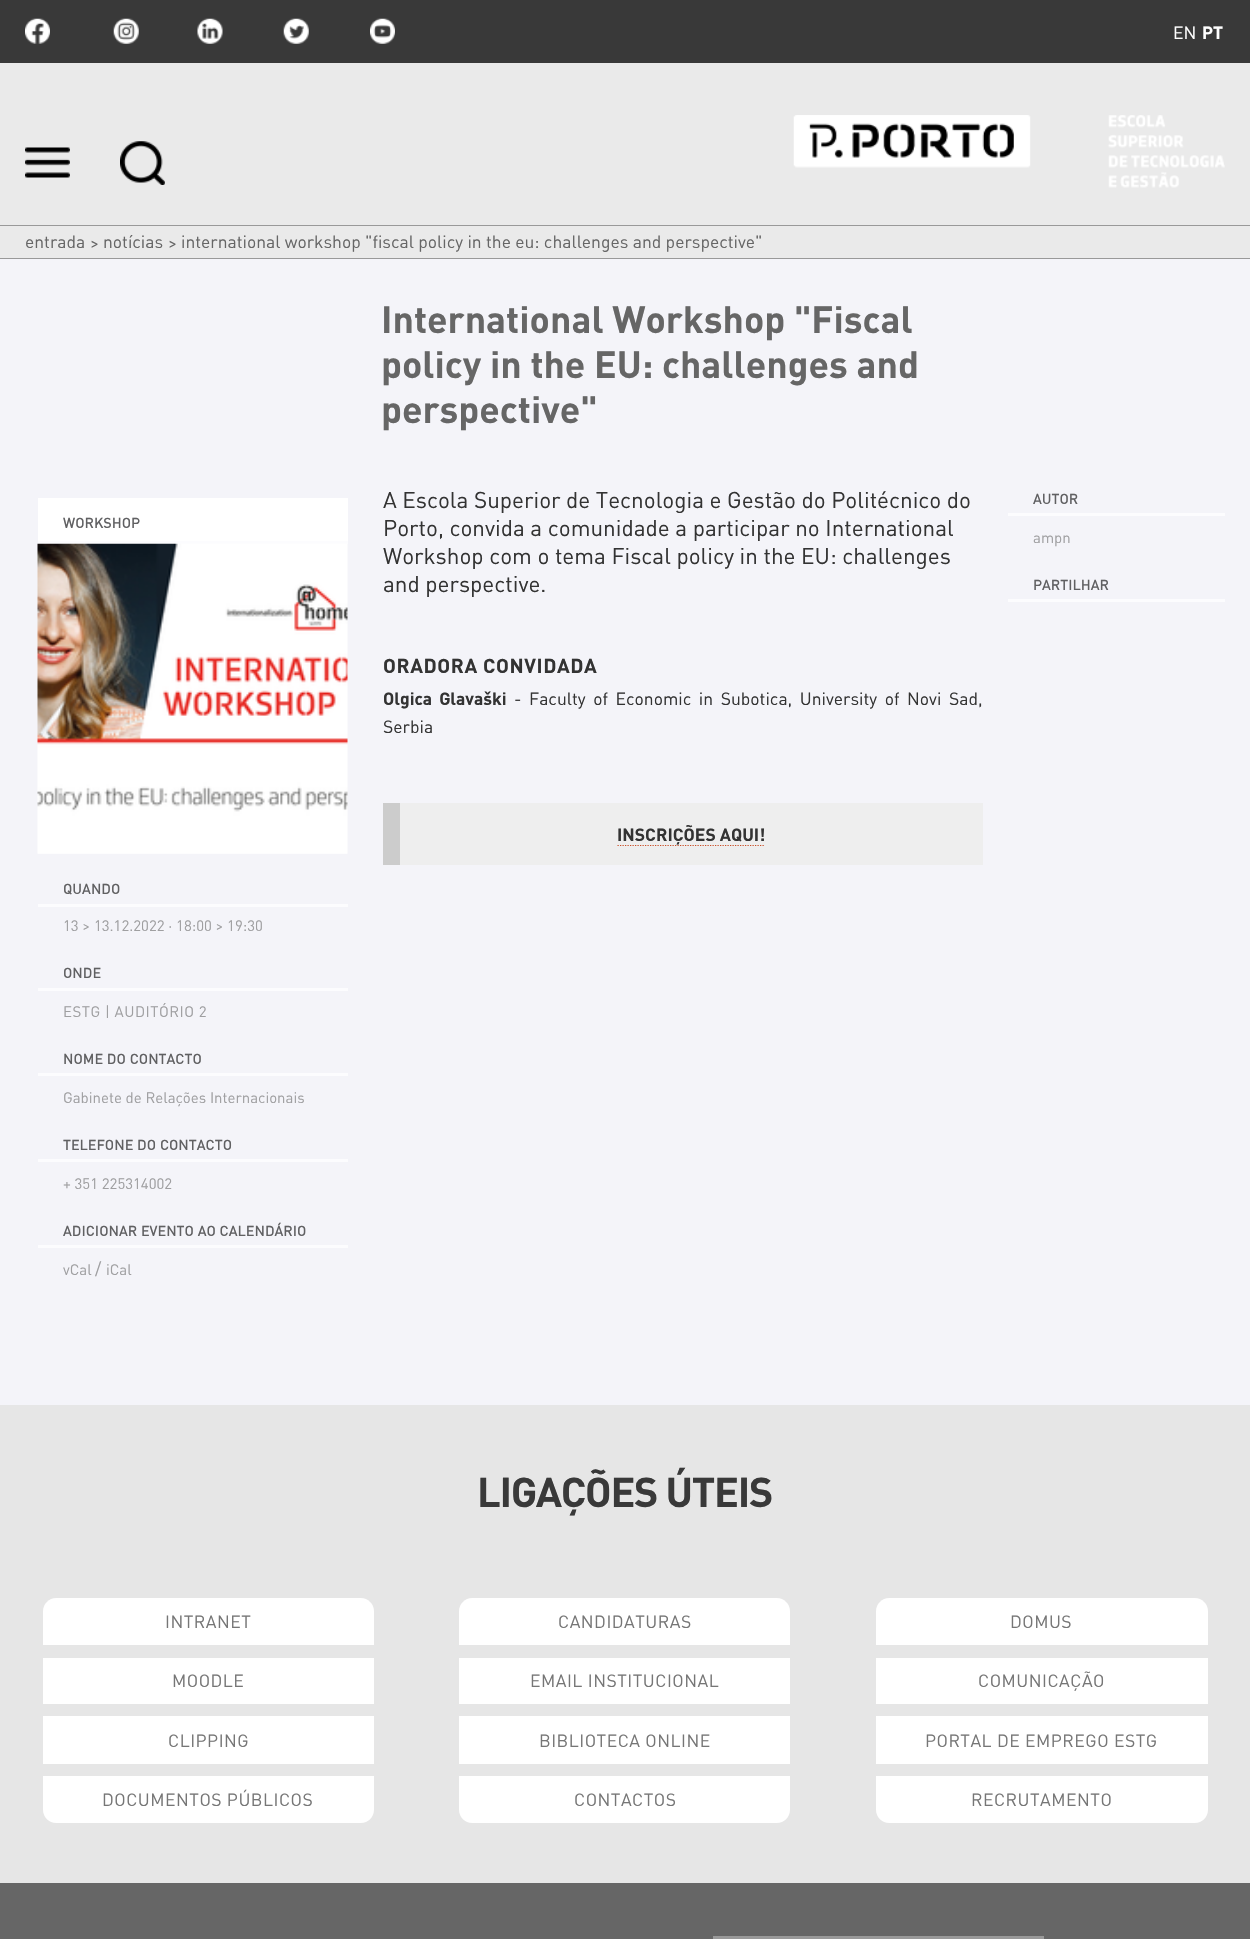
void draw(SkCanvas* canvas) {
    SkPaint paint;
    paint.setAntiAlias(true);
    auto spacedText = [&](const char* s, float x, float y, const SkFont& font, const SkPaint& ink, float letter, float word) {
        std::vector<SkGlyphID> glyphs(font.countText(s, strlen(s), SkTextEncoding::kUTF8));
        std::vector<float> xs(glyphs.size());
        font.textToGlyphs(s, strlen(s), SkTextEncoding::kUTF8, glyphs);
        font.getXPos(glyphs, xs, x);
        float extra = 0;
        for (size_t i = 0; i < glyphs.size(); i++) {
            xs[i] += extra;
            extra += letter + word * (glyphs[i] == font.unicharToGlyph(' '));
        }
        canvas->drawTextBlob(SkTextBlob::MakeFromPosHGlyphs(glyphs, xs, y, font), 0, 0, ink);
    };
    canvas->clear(0xFFF4F4F9);
    paint.setColor(0xFF393939);
    canvas->drawRect(SkRect::MakeXYWH(0, 0, 1250, 63), paint);
    canvas->drawImageRect(SkImages::DeferredFromEncodedData(SkData::MakeFromFileName("img1.png")), SkRect::MakeXYWH(25, 18, 25, 26), SkSamplingOptions());
    canvas->drawImageRect(SkImages::DeferredFromEncodedData(SkData::MakeFromFileName("img2.png")), SkRect::MakeXYWH(113, 18, 26, 26), SkSamplingOptions());
    canvas->drawImageRect(SkImages::DeferredFromEncodedData(SkData::MakeFromFileName("img3.png")), SkRect::MakeXYWH(197, 18, 26, 26), SkSamplingOptions());
    canvas->drawImageRect(SkImages::DeferredFromEncodedData(SkData::MakeFromFileName("img4.png")), SkRect::MakeXYWH(283, 18, 26, 26), SkSamplingOptions());
    canvas->drawImageRect(SkImages::DeferredFromEncodedData(SkData::MakeFromFileName("img5.png")), SkRect::MakeXYWH(370, 18, 25, 26), SkSamplingOptions());
    SkFont font1(fontMgr->matchFamilyStyle("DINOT", SkFontStyle::Normal()), 17.5f);
    font1.setSubpixel(true);
    paint.setColor(0xFFFFFFFF);
    canvas->drawString("EN", 1173, 39, font1, paint);
    SkFont font2(fontMgr->matchFamilyStyle("DINOT", SkFontStyle::Bold()), 17.5f);
    font2.setSubpixel(true);
    canvas->drawString("PT", 1202, 39, font2, paint);
    paint.setColor(0xFFEAEAEA);
    canvas->drawRect(SkRect::MakeXYWH(0, 63, 1250, 195), paint);
    canvas->drawImageRect(SkImages::DeferredFromEncodedData(SkData::MakeFromFileName("img6.png")), SkRect::MakeXYWH(25, 147, 45, 31), SkSamplingOptions());
    canvas->drawImageRect(SkImages::DeferredFromEncodedData(SkData::MakeFromFileName("img7.png")), SkRect::MakeXYWH(120, 141, 45, 44), SkSamplingOptions());
    canvas->drawImageRect(SkImages::DeferredFromEncodedData(SkData::MakeFromFileName("img8.png")), SkRect::MakeXYWH(793, 115, 432, 73), SkSamplingOptions());
    paint.setColor(0xFF999999);
    canvas->drawRect(SkRect::MakeXYWH(0, 225, 1250, 1), paint);
    canvas->drawRect(SkRect::MakeXYWH(0, 258, 1250, 1), paint);
    paint.setColor(0xFF666666);
    canvas->drawString("entrada", 25, 248, font1, paint);
    canvas->drawString(">", 90, 249, font1, paint);
    canvas->drawString("notícias", 103, 248, font1, paint);
    canvas->drawString(">", 168, 249, font1, paint);
    canvas->drawString("international workshop \"fiscal policy in the eu: challenges and perspective\"", 181, 248, font1, paint);
    SkFont font3(fontMgr->matchFamilyStyle("DINOT", SkFontStyle::Bold()), 37.5f);
    font3.setSubpixel(true);
    canvas->drawString("International Workshop \"Fiscal", 381, 333, font3, paint);
    canvas->drawString("policy in the EU: challenges and", 381, 378, font3, paint);
    canvas->drawString("perspective\"", 381, 423, font3, paint);
    paint.setColor(0xFFFFFFFF);
    canvas->drawRect(SkRect::MakeXYWH(38, 498, 310, 43), paint);
    paint.setColor(0xFFFCFCFE);
    canvas->drawRect(SkRect::MakeXYWH(38, 541, 310, 3), paint);
    SkFont font4(fontMgr->matchFamilyStyle("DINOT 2", SkFontStyle::Bold()), 13.75f);
    font4.setSubpixel(true);
    paint.setColor(0xFF606062);
    spacedText("WORKSHOP", 63, 528, font4, paint, 0.4f, 0);
    canvas->drawImageRect(SkImages::DeferredFromEncodedData(SkData::MakeFromFileName("img9.png")), SkRect::MakeXYWH(37, 543, 311, 311), SkSamplingOptions());
    paint.setColor(0xFFFCFCFE);
    canvas->drawRect(SkRect::MakeXYWH(38, 904, 310, 3), paint);
    paint.setColor(0xFF606062);
    spacedText("QUANDO", 63, 894, font4, paint, 0.4f, 0);
    SkFont font5(fontMgr->matchFamilyStyle("DINOT", SkFontStyle::Normal()), 15);
    font5.setSubpixel(true);
    paint.setColor(0xFF9F9FA1);
    canvas->drawString("13 > 13.12.2022 · 18:00 > 19:30", 63, 931, font5, paint);
    paint.setColor(0xFFFCFCFE);
    canvas->drawRect(SkRect::MakeXYWH(38, 988, 310, 3), paint);
    paint.setColor(0xFF606062);
    spacedText("ONDE", 63, 978, font4, paint, 0.4f, 0);
    paint.setColor(0xFF9F9FA1);
    spacedText("ESTG | AUDITÓRIO 2", 63, 1017, font5, paint, 0.5f, 0);
    paint.setColor(0xFFFCFCFE);
    canvas->drawRect(SkRect::MakeXYWH(38, 1073, 310, 3), paint);
    paint.setColor(0xFF606062);
    spacedText("NOME DO CONTACTO", 63, 1064, font4, paint, 0.4f, 0);
    paint.setColor(0xFF9F9FA1);
    canvas->drawString("Gabinete de Relações Internacionais", 63, 1103, font5, paint);
    paint.setColor(0xFFFCFCFE);
    canvas->drawRect(SkRect::MakeXYWH(38, 1159, 310, 3), paint);
    paint.setColor(0xFF606062);
    spacedText("TELEFONE DO CONTACTO", 63, 1150, font4, paint, 0.4f, 0);
    paint.setColor(0xFF9F9FA1);
    canvas->drawString("+ 351 225314002", 63, 1189, font5, paint);
    paint.setColor(0xFFFCFCFE);
    canvas->drawRect(SkRect::MakeXYWH(38, 1245, 310, 3), paint);
    paint.setColor(0xFF606062);
    spacedText("ADICIONAR EVENTO AO CALENDÁRIO", 63, 1236, font4, paint, 0.4f, 0);
    paint.setColor(0xFF9F9FA1);
    canvas->drawString("vCal", 63, 1275, font5, paint);
    canvas->drawString("/", 95, 1275, font1, paint);
    canvas->drawString("iCal", 106, 1275, font5, paint);
    SkFont font6(fontMgr->matchFamilyStyle("DINOT", SkFontStyle::Normal()), 22.5f);
    font6.setSubpixel(true);
    paint.setColor(0xFF333333);
    canvas->drawString("A Escola Superior de Tecnologia e Gestão do Politécnico do", 383, 508, font6, paint);
    canvas->drawString("Porto, convida a comunidade a participar no International", 383, 536, font6, paint);
    canvas->drawString("Workshop com o tema Fiscal policy in the EU: challenges", 383, 564, font6, paint);
    canvas->drawString("and perspective.", 383, 592, font6, paint);
    SkFont font7(fontMgr->matchFamilyStyle("DINOT", SkFontStyle::Bold()), 20);
    font7.setSubpixel(true);
    spacedText("ORADORA CONVIDADA", 383, 673, font7, paint, 0.6f, 0);
    spacedText("Olgica Glavaški", 383, 705, font2, paint, 0, 3);
    spacedText("- Faculty of Economic in Subotica, University of Novi Sad,", 514, 705, font1, paint, 0, 3.25f);
    canvas->drawString("Serbia", 383, 733, font1, paint);
    paint.setColor(0xFFEEEEEE);
    canvas->drawRect(SkRect::MakeXYWH(400, 803, 583, 62), paint);
    paint.setColor(0xFFCCCCCC);
    canvas->drawRect(SkRect::MakeXYWH(383, 803, 17, 62), paint);
    paint.setStyle(SkPaint::kStroke_Style);
    paint.setStrokeWidth(1.2f);
    paint.setColor(0xFFCA4D24);
    paint.setPathEffect(SkDashPathEffect::Make({{1.25f, 1.25f}}, 0));
    canvas->drawPath(SkPathBuilder().moveTo(617.5f, 845.5f).lineTo(765, 845.5f).detach(), paint);
    paint.setPathEffect(nullptr);
    paint.setStyle(SkPaint::kFill_Style);
    paint.setColor(0xFF333333);
    canvas->drawString("INSCRIÇÕES AQUI!", 617, 841, font2, paint);
    paint.setColor(0xFFFCFCFE);
    canvas->drawRect(SkRect::MakeXYWH(1008, 513, 217, 3), paint);
    paint.setColor(0xFF606062);
    spacedText("AUTOR", 1033, 504, font4, paint, 0.4f, 0);
    paint.setColor(0xFF9F9FA1);
    canvas->drawString("ampn", 1033, 543, font5, paint);
    paint.setColor(0xFFFCFCFE);
    canvas->drawRect(SkRect::MakeXYWH(1008, 599, 217, 3), paint);
    paint.setColor(0xFF606062);
    spacedText("PARTILHAR", 1033, 590, font4, paint, 0.4f, 0);
    paint.setColor(0xFF666666);
    canvas->drawRect(SkRect::MakeXYWH(0, 1883, 1250, 56), paint);
    paint.setColor(0xFFE6E6E6);
    canvas->drawRect(SkRect::MakeXYWH(0, 1405, 1250, 478), paint);
    SkFont font8(fontMgr->matchFamilyStyle("DINOT", SkFontStyle::Bold()), 41.25f);
    font8.setSubpixel(true);
    paint.setColor(0xFF393939);
    spacedText("LIGAÇÕES ÚTEIS", 477, 1507, font8, paint, -1.25f, 0);
    paint.setColor(0xFFFFFFFF);
    canvas->drawPath(SkPathBuilder().moveTo(56, 1598).lineTo(361, 1598).cubicTo(368, 1598, 374, 1604, 374, 1611).lineTo(374, 1645).lineTo(43, 1645).lineTo(43, 1611).cubicTo(43, 1604, 49, 1598, 56, 1598).close().detach(), paint);
    paint.setColor(0xFF767676);
    spacedText("INTRANET", 165, 1628, font1, paint, 0.5f, 0);
    paint.setColor(0xFFFFFFFF);
    canvas->drawPath(SkPathBuilder().moveTo(472, 1598).lineTo(777, 1598).cubicTo(784, 1598, 790, 1604, 790, 1611).lineTo(790, 1645).lineTo(459, 1645).lineTo(459, 1611).cubicTo(459, 1604, 465, 1598, 472, 1598).close().detach(), paint);
    paint.setColor(0xFF767676);
    spacedText("CANDIDATURAS", 558, 1628, font1, paint, 0.5f, 0);
    paint.setColor(0xFFFFFFFF);
    canvas->drawPath(SkPathBuilder().moveTo(889, 1598).lineTo(1195, 1598).cubicTo(1202, 1598, 1208, 1604, 1208, 1611).lineTo(1208, 1645).lineTo(876, 1645).lineTo(876, 1611).cubicTo(876, 1604, 882, 1598, 889, 1598).close().detach(), paint);
    paint.setColor(0xFF767676);
    spacedText("DOMUS", 1010, 1628, font1, paint, 0.5f, 0);
    paint.setColor(0xFFFFFFFF);
    canvas->drawRect(SkRect::MakeXYWH(43, 1658, 331, 46), paint);
    paint.setColor(0xFF767676);
    spacedText("MOODLE", 172, 1687, font1, paint, 0.5f, 0);
    paint.setColor(0xFFFFFFFF);
    canvas->drawRect(SkRect::MakeXYWH(459, 1658, 331, 46), paint);
    paint.setColor(0xFF767676);
    spacedText("EMAIL INSTITUCIONAL", 530, 1687, font1, paint, 0.5f, 0);
    paint.setColor(0xFFFFFFFF);
    canvas->drawRect(SkRect::MakeXYWH(876, 1658, 332, 46), paint);
    paint.setColor(0xFF767676);
    spacedText("COMUNICAÇÃO", 978, 1687, font1, paint, 0.5f, 0);
    paint.setColor(0xFFFFFFFF);
    canvas->drawRect(SkRect::MakeXYWH(43, 1716, 331, 48), paint);
    paint.setColor(0xFF767676);
    spacedText("CLIPPING", 168, 1747, font1, paint, 0.5f, 0);
    paint.setColor(0xFFFFFFFF);
    canvas->drawRect(SkRect::MakeXYWH(459, 1716, 331, 48), paint);
    paint.setColor(0xFF767676);
    spacedText("BIBLIOTECA ONLINE", 539, 1747, font1, paint, 0.5f, 0);
    paint.setColor(0xFFFFFFFF);
    canvas->drawRect(SkRect::MakeXYWH(876, 1716, 332, 48), paint);
    paint.setColor(0xFF767676);
    spacedText("PORTAL DE EMPREGO ESTG", 925, 1747, font1, paint, 0.5f, 0);
    paint.setColor(0xFFFFFFFF);
    canvas->drawPath(SkPathBuilder().moveTo(43, 1776).lineTo(374, 1776).lineTo(374, 1810).cubicTo(374, 1817, 368, 1823, 361, 1823).lineTo(56, 1823).cubicTo(49, 1823, 43, 1817, 43, 1810).close().detach(), paint);
    paint.setColor(0xFF767676);
    spacedText("DOCUMENTOS PÚBLICOS", 102, 1806, font1, paint, 0.5f, 0);
    paint.setColor(0xFFFFFFFF);
    canvas->drawPath(SkPathBuilder().moveTo(459, 1776).lineTo(790, 1776).lineTo(790, 1810).cubicTo(790, 1817, 784, 1823, 777, 1823).lineTo(472, 1823).cubicTo(465, 1823, 459, 1817, 459, 1810).close().detach(), paint);
    paint.setColor(0xFF767676);
    spacedText("CONTACTOS", 574, 1806, font1, paint, 0.5f, 0);
    paint.setColor(0xFFFFFFFF);
    canvas->drawPath(SkPathBuilder().moveTo(876, 1776).lineTo(1208, 1776).lineTo(1208, 1810).cubicTo(1208, 1817, 1202, 1823, 1195, 1823).lineTo(889, 1823).cubicTo(882, 1823, 876, 1817, 876, 1810).close().detach(), paint);
    paint.setColor(0xFF767676);
    spacedText("RECRUTAMENTO", 971, 1806, font1, paint, 0.5f, 0);
    paint.setColor(0xFF999999);
    canvas->drawRect(SkRect::MakeXYWH(713, 1936, 331, 3), paint);
}
